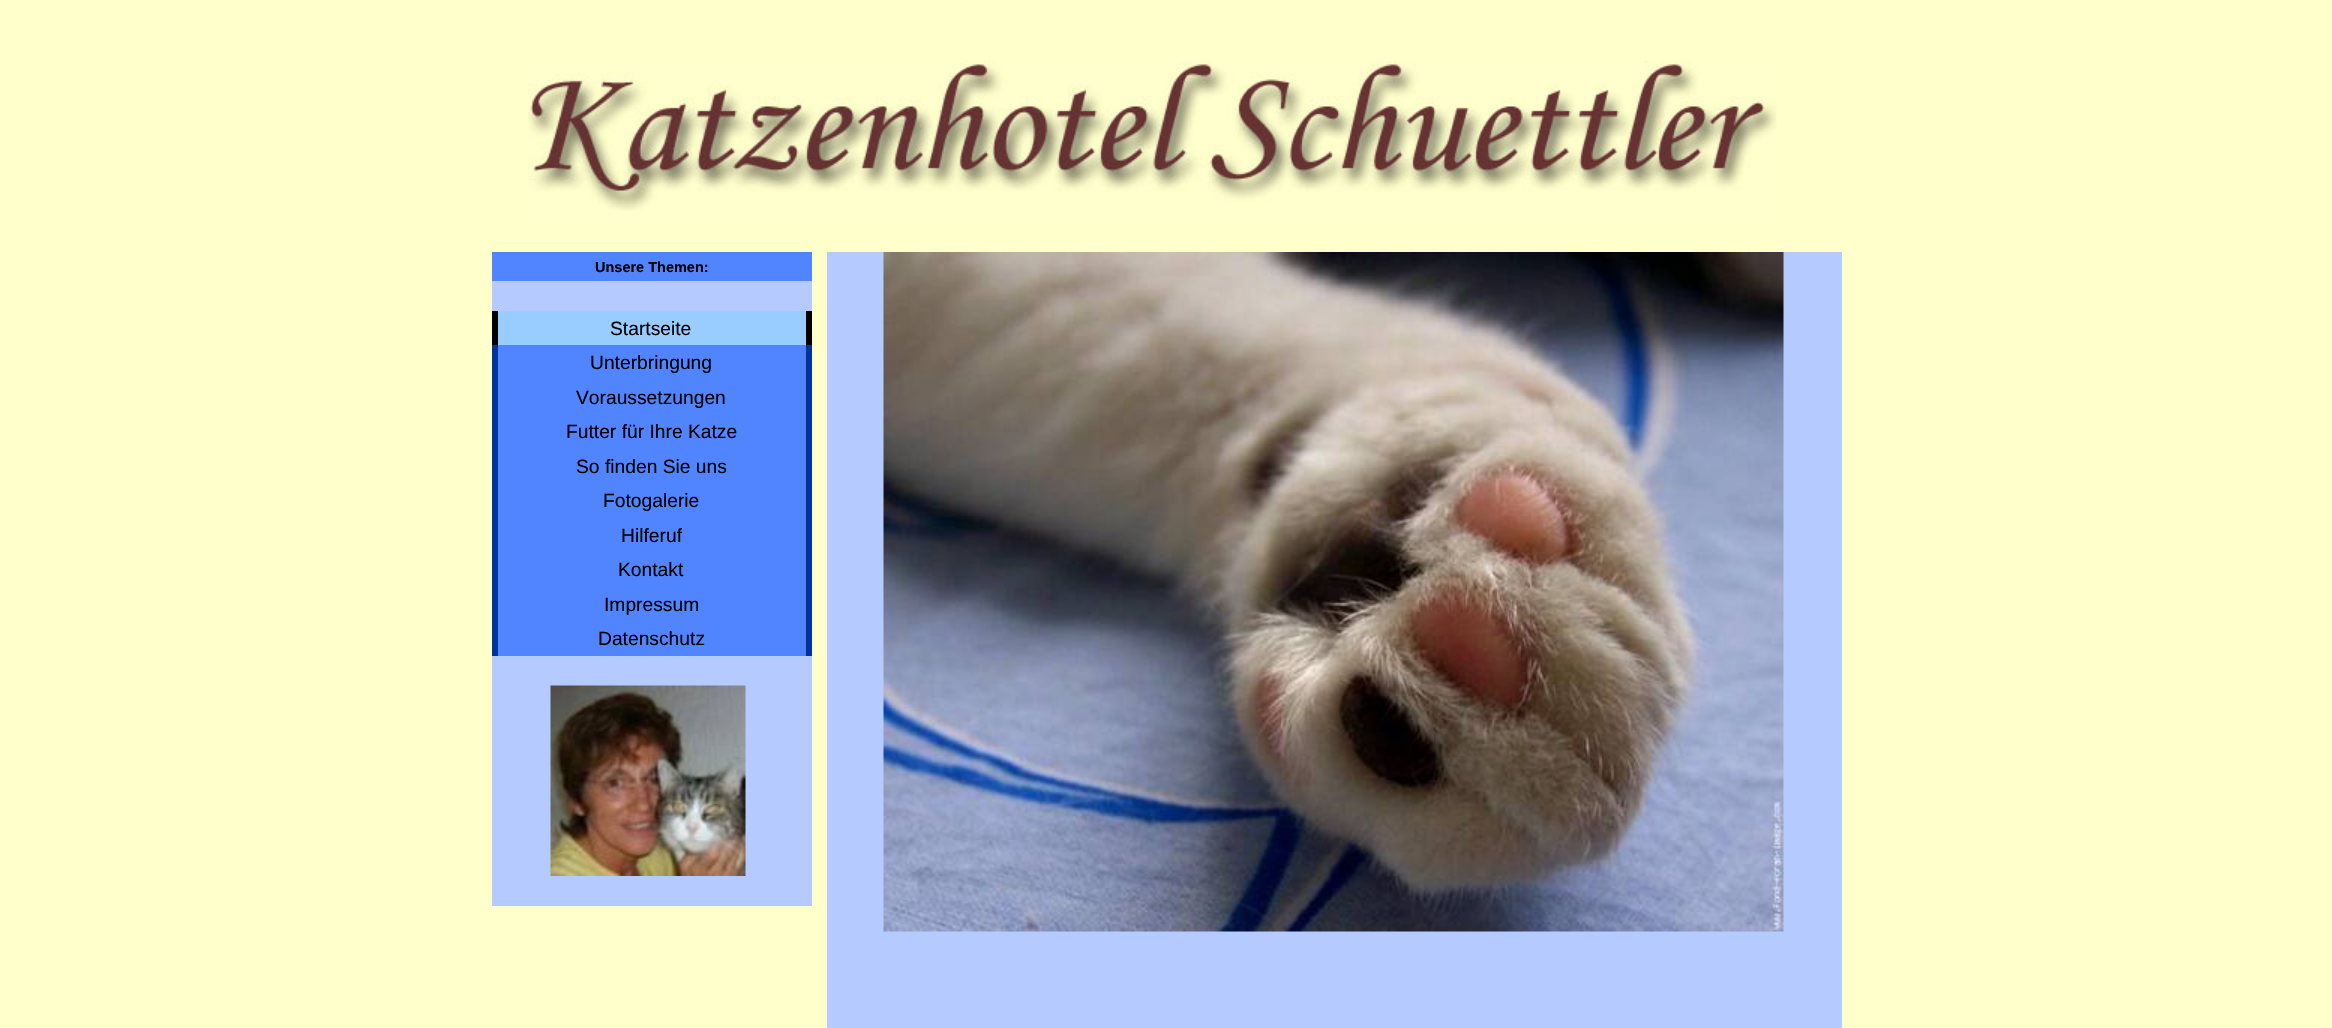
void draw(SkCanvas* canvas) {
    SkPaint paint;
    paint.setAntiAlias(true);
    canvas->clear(0xFFFFFFCC);
    canvas->drawImageRect(SkImages::DeferredFromEncodedData(SkData::MakeFromFileName("img1.png")), SkRect::MakeXYWH(528, 60, 1249, 151), SkSamplingOptions());
    paint.setColor(0xFFB5CBFF);
    canvas->drawRect(SkRect::MakeXYWH(492, 281, 320, 625), paint);
    paint.setColor(0xFF5085FF);
    canvas->drawRect(SkRect::MakeXYWH(492, 252, 320, 29), paint);
    SkFont font1(fontMgr->matchFamilyStyle("Liberation Sans", SkFontStyle::Bold()), 14.5f);
    font1.setSubpixel(true);
    paint.setColor(0xFF000000);
    canvas->drawString("Unsere Themen:", 595, 272, font1, paint);
    paint.setColor(0xFF99CCFF);
    canvas->drawRect(SkRect::MakeXYWH(498, 311, 308, 34), paint);
    paint.setColor(0xFF000000);
    canvas->drawRect(SkRect::MakeXYWH(806, 311, 6, 34), paint);
    canvas->drawRect(SkRect::MakeXYWH(492, 311, 6, 34), paint);
    SkFont font2(fontMgr->matchFamilyStyle("Liberation Sans", SkFontStyle::Normal()), 19.25f);
    font2.setSubpixel(true);
    canvas->drawString("Startseite", 610, 335, font2, paint);
    paint.setColor(0xFF5085FF);
    canvas->drawRect(SkRect::MakeXYWH(498, 345, 308, 311), paint);
    paint.setColor(0xFF003399);
    canvas->drawRect(SkRect::MakeXYWH(806, 345, 6, 311), paint);
    canvas->drawRect(SkRect::MakeXYWH(492, 345, 6, 311), paint);
    paint.setColor(0xFF000000);
    canvas->drawString("Unterbringung", 590, 369, font2, paint);
    canvas->drawString("Voraussetzungen", 576, 404, font2, paint);
    canvas->drawString("Futter für Ihre Katze", 566, 438, font2, paint);
    canvas->drawString("So finden Sie uns", 576, 473, font2, paint);
    canvas->drawString("Fotogalerie", 603, 507, font2, paint);
    canvas->drawString("Hilferuf", 621, 542, font2, paint);
    canvas->drawString("Kontakt", 618, 576, font2, paint);
    canvas->drawString("Impressum", 604, 611, font2, paint);
    canvas->drawString("Datenschutz", 598, 645, font2, paint);
    canvas->drawImageRect(SkImages::DeferredFromEncodedData(SkData::MakeFromFileName("img2.png")), SkRect::MakeXYWH(550, 685, 196, 191), SkSamplingOptions());
    paint.setColor(0xFFB5CBFF);
    canvas->drawRect(SkRect::MakeXYWH(827, 252, 1015, 776), paint);
    canvas->drawImageRect(SkImages::DeferredFromEncodedData(SkData::MakeFromFileName("img3.png")), SkRect::MakeXYWH(883, 252, 901, 680), SkSamplingOptions());
}
